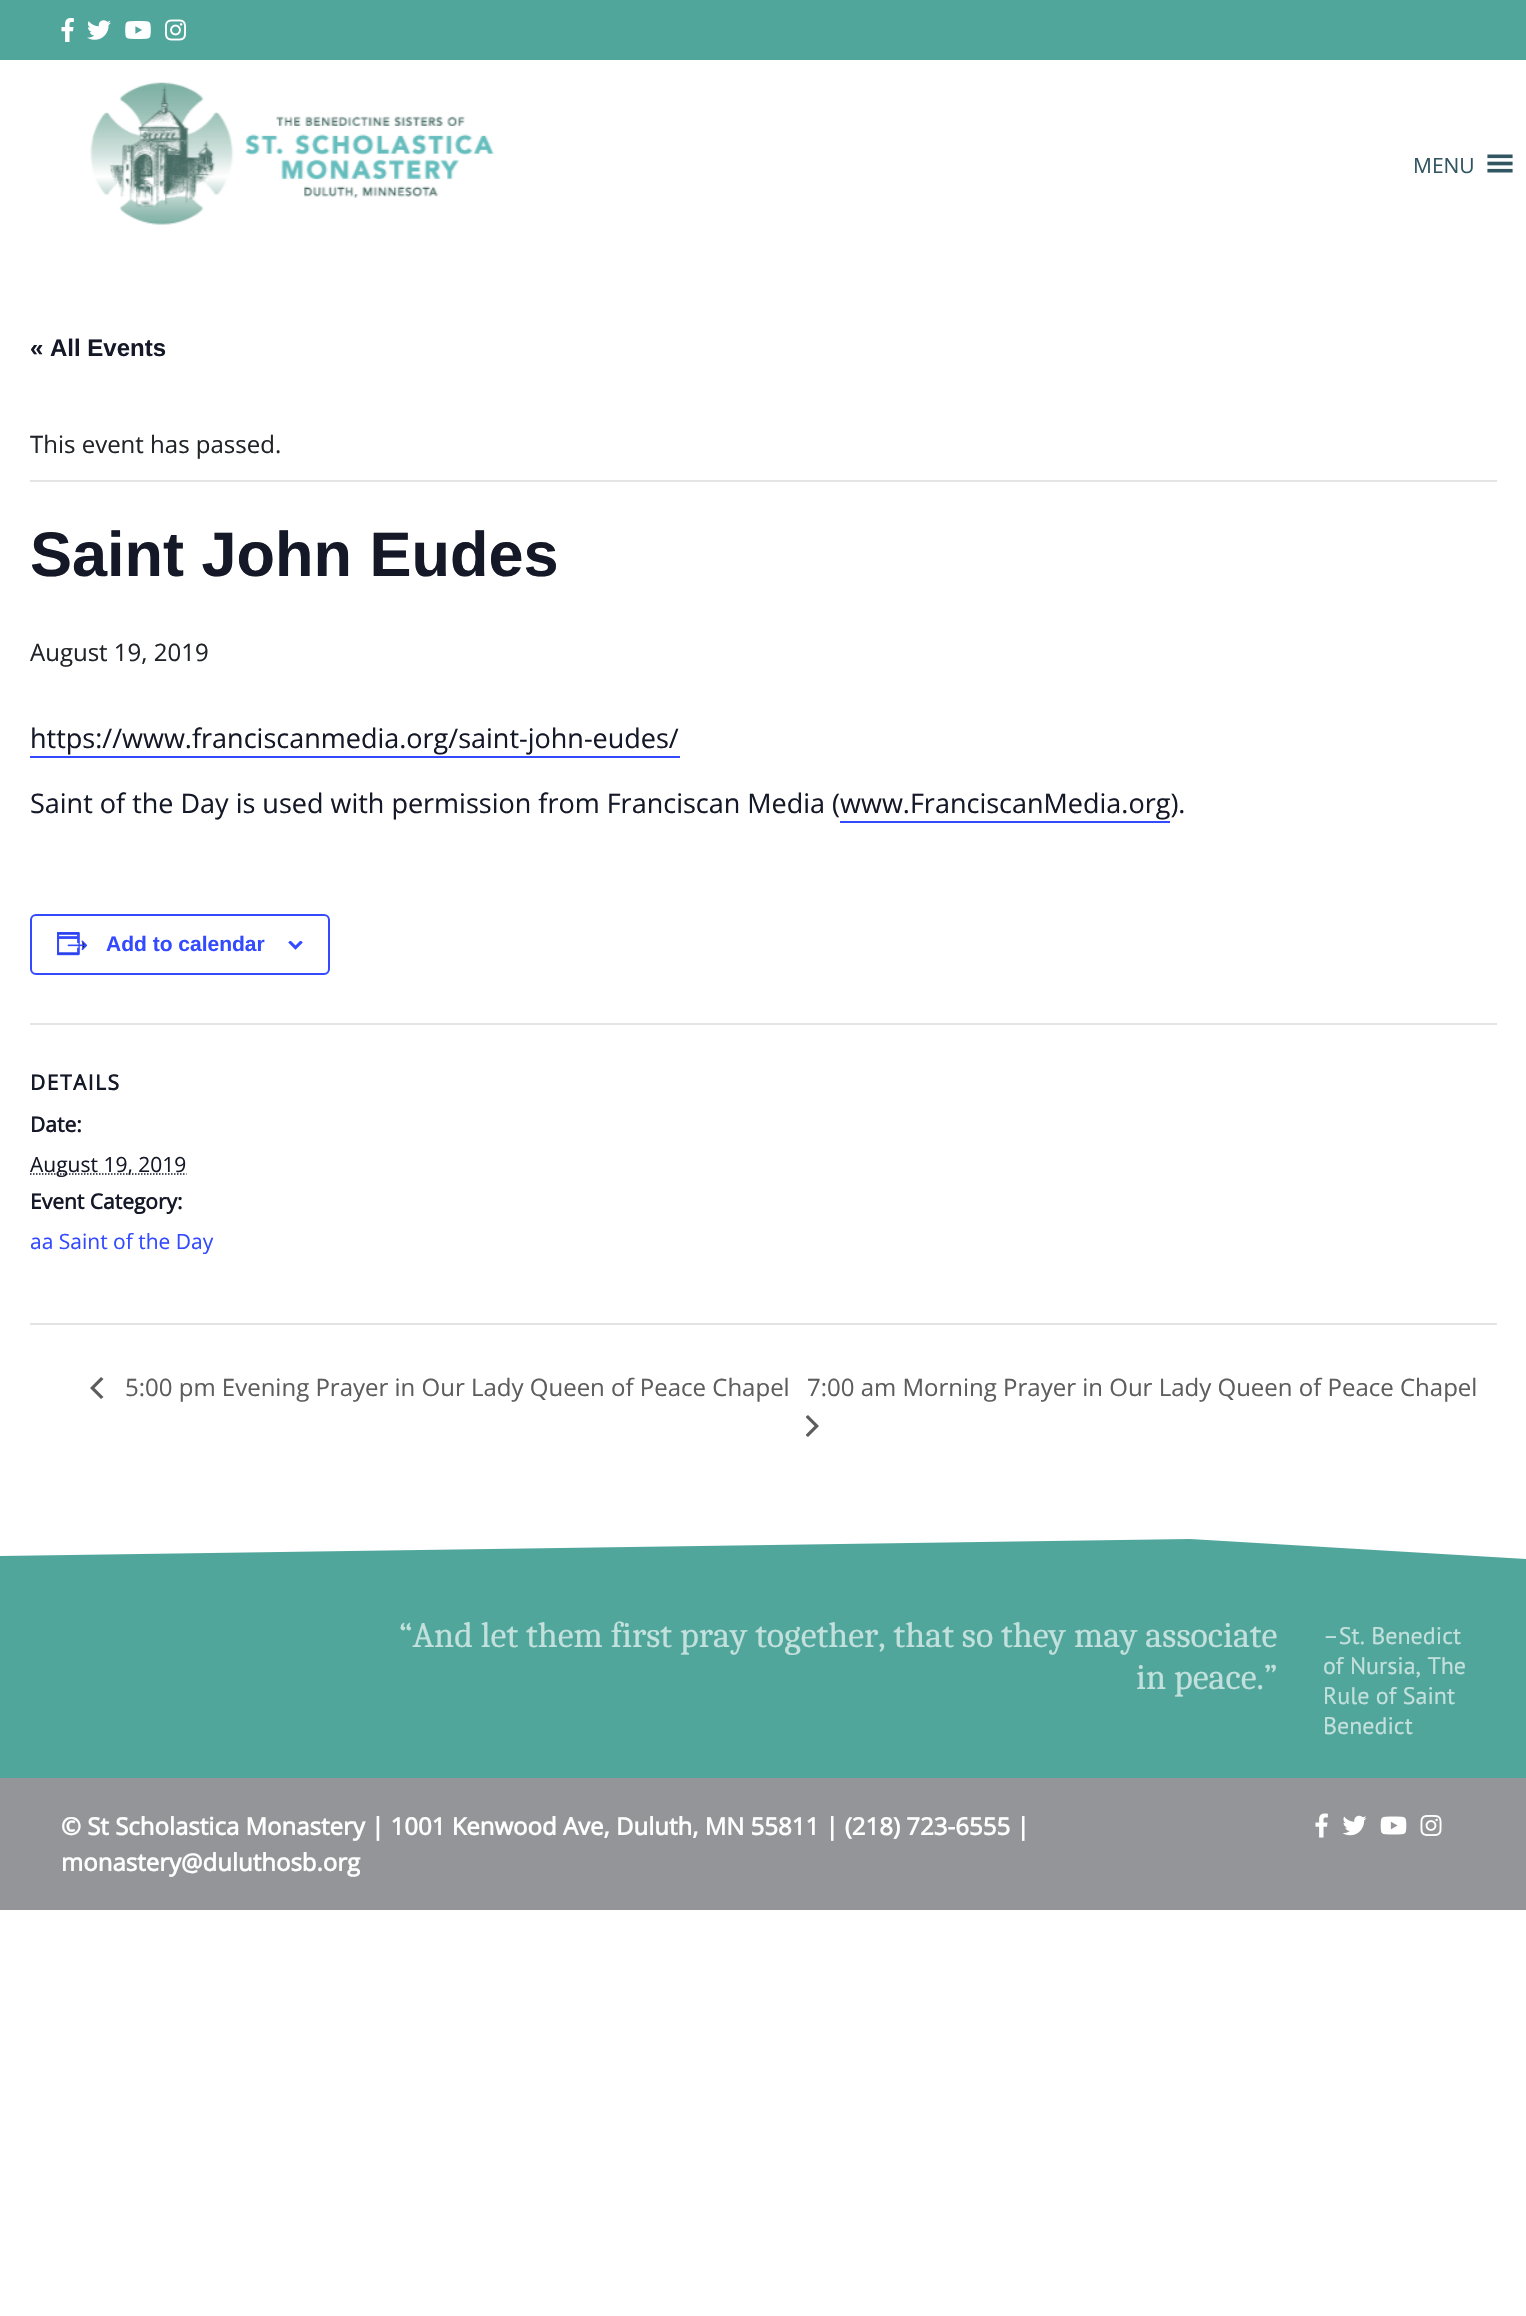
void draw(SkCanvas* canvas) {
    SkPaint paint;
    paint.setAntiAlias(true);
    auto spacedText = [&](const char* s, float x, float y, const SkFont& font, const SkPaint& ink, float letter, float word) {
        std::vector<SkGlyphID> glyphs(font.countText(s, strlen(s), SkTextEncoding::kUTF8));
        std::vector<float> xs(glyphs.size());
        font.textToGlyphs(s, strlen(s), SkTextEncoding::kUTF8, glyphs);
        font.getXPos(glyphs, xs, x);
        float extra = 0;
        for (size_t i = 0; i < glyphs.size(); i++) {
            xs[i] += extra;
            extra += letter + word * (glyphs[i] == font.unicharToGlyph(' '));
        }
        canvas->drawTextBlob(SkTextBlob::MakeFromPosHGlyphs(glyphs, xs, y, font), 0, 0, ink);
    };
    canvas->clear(0xFFFFFFFF);
    paint.setColor(0xFF51A69C);
    canvas->drawRect(SkRect::MakeXYWH(0, 0, 1526, 60), paint);
    canvas->drawImageRect(SkImages::DeferredFromEncodedData(SkData::MakeFromFileName("img1.png")), SkRect::MakeXYWH(61, 18, 13, 24), SkSamplingOptions());
    canvas->drawImageRect(SkImages::DeferredFromEncodedData(SkData::MakeFromFileName("img2.png")), SkRect::MakeXYWH(87, 20, 24, 20), SkSamplingOptions());
    canvas->drawImageRect(SkImages::DeferredFromEncodedData(SkData::MakeFromFileName("img3.png")), SkRect::MakeXYWH(125, 21, 26, 18), SkSamplingOptions());
    canvas->drawImageRect(SkImages::DeferredFromEncodedData(SkData::MakeFromFileName("img4.png")), SkRect::MakeXYWH(165, 19, 21, 22), SkSamplingOptions());
    canvas->drawImageRect(SkImages::DeferredFromEncodedData(SkData::MakeFromFileName("img5.png")), SkRect::MakeXYWH(90, 82, 404, 143), SkSamplingOptions());
    SkFont font1(fontMgr->matchFamilyStyle("Open Sans", SkFontStyle::Normal()), 21);
    font1.setSubpixel(true);
    paint.setColor(0xFF315662);
    canvas->drawString("MENU", 1413, 173, font1, paint);
    canvas->drawImageRect(SkImages::DeferredFromEncodedData(SkData::MakeFromFileName("img6.png")), SkRect::MakeXYWH(1487, 154, 26, 19), SkSamplingOptions());
    SkFont font2(fontMgr->matchFamilyStyle("Liberation Sans", SkFontStyle::Bold()), 24);
    font2.setSubpixel(true);
    paint.setColor(0xFF141827);
    canvas->drawString("« All Events", 30, 356, font2, paint);
    paint.setColor(0xFFE4E4E4);
    canvas->drawRect(SkRect::MakeXYWH(30, 480, 1467, 2), paint);
    SkFont font3(fontMgr->matchFamilyStyle("Open Sans", SkFontStyle::Normal()), 24);
    font3.setSubpixel(true);
    paint.setColor(0xFF212529);
    canvas->drawString("This event has passed.", 30, 453, font3, paint);
    SkFont font4(fontMgr->matchFamilyStyle("Liberation Sans", SkFontStyle::Bold()), 63);
    font4.setSubpixel(true);
    paint.setColor(0xFF141827);
    canvas->drawString("Saint John Eudes", 30, 576, font4, paint);
    paint.setColor(0xFF212529);
    canvas->drawString("August 19, 2019", 30, 661, font3, paint);
    SkFont font5(fontMgr->matchFamilyStyle("Open Sans", SkFontStyle::Normal()), 27);
    font5.setSubpixel(true);
    paint.setColor(0xFF141827);
    canvas->drawString("https://www.franciscanmedia.org/saint-john-eudes/", 30, 748, font5, paint);
    paint.setColor(0xFF334AFF);
    canvas->drawRect(SkRect::MakeXYWH(30, 756, 650, 2), paint);
    paint.setColor(0xFF141827);
    canvas->drawString("Saint of the Day is used with permission from Franciscan Media (www.FranciscanMedia.org).", 30, 813, font5, paint);
    paint.setColor(0xFF334AFF);
    canvas->drawRect(SkRect::MakeXYWH(840, 821, 330, 2), paint);
    paint.setStyle(SkPaint::kStroke_Style);
    paint.setStrokeWidth(2);
    canvas->drawRoundRect(SkRect::MakeXYWH(31, 915, 298, 59), 5, 5, paint);
    canvas->drawImageRect(SkImages::DeferredFromEncodedData(SkData::MakeFromFileName("img7.png")), SkRect::MakeXYWH(57, 932, 31, 24), SkSamplingOptions());
    SkFont font6(fontMgr->matchFamilyStyle("Liberation Sans", SkFontStyle::Bold()), 21);
    font6.setSubpixel(true);
    paint.setStyle(SkPaint::kFill_Style);
    canvas->drawString("Add to calendar", 106, 951, font6, paint);
    canvas->drawImageRect(SkImages::DeferredFromEncodedData(SkData::MakeFromFileName("img8.png")), SkRect::MakeXYWH(288, 941, 15, 9), SkSamplingOptions());
    paint.setColor(0xFFE4E4E4);
    canvas->drawRect(SkRect::MakeXYWH(30, 1023, 1467, 2), paint);
    SkFont font7(fontMgr->matchFamilyStyle("Open Sans", SkFontStyle::Bold()), 21);
    font7.setSubpixel(true);
    paint.setColor(0xFF141827);
    spacedText("DETAILS", 30, 1090, font7, paint, 1.5f, 0);
    canvas->drawString("Date:", 30, 1132, font7, paint);
    paint.setStyle(SkPaint::kStroke_Style);
    paint.setStrokeWidth(1.5f);
    paint.setPathEffect(SkDashPathEffect::Make({{1.5f, 1.5f}}, 0));
    canvas->drawPath(SkPathBuilder().moveTo(30, 1174).lineTo(186.5f, 1174).detach(), paint);
    paint.setPathEffect(nullptr);
    paint.setStyle(SkPaint::kFill_Style);
    canvas->drawString("August 19, 2019", 30, 1172, font1, paint);
    canvas->drawString("Event Category:", 30, 1209, font7, paint);
    paint.setColor(0xFF334AFF);
    canvas->drawString("aa Saint of the Day", 30, 1249, font1, paint);
    paint.setColor(0xFFE4E4E4);
    canvas->drawRect(SkRect::MakeXYWH(30, 1323, 1467, 2), paint);
    paint.setColor(0xFF5D5D5D);
    canvas->drawPath(SkPathBuilder().moveTo(103.5f, 1397).lineTo(101, 1399).lineTo(90, 1388).lineTo(101, 1377).lineTo(103.5f, 1379).lineTo(94.5f, 1388).close().detach(), paint);
    canvas->drawString("5:00 pm Evening Prayer in Our Lady Queen of Peace Chapel", 125, 1396, font3, paint);
    canvas->drawString("7:00 am Morning Prayer in Our Lady Queen of Peace Chapel", 807, 1396, font3, paint);
    canvas->save();
    canvas->clipRect(SkRect::MakeXYWH(806, 1415, 13, 22));
    canvas->drawPath(SkPathBuilder().moveTo(805.5f, 1417).lineTo(808, 1415).lineTo(819, 1426).lineTo(808, 1437).lineTo(805.5f, 1435).lineTo(814.5f, 1426).close().detach(), paint);
    canvas->restore();
    canvas->save();
    canvas->clipRect(SkRect::MakeXYWH(0, 1539, 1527, 239));
    paint.setColor(0xFF51A69C);
    canvas->drawPath(SkPathBuilder().moveTo(0, 1556).lineTo(0, 1946).lineTo(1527, 1946).lineTo(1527, 1559).lineTo(1190, 1539).close().detach(), paint);
    canvas->restore();
    SkFont font8(fontMgr->matchFamilyStyle("Caladea", SkFontStyle::Normal()), 36);
    font8.setSubpixel(true);
    paint.setColor(0xFFC2E0DC);
    canvas->drawString("“And let them first pray together, that so they may associate", 399, 1647, font8, paint);
    canvas->drawString("in peace.”", 1136, 1689, font8, paint);
    SkFont font9(fontMgr->matchFamilyStyle("PT Sans", SkFontStyle::Normal()), 24);
    font9.setSubpixel(true);
    canvas->drawString("–St. Benedict", 1323, 1644, font9, paint);
    canvas->drawString("of Nursia, The", 1323, 1674, font9, paint);
    canvas->drawString("Rule of Saint", 1323, 1704, font9, paint);
    canvas->drawString("Benedict", 1323, 1734, font9, paint);
    paint.setColor(0xFF939598);
    canvas->drawRect(SkRect::MakeXYWH(0, 1778, 1526, 132), paint);
    SkFont font10(fontMgr->matchFamilyStyle("Open Sans", SkFontStyle::Bold()), 24);
    font10.setSubpixel(true);
    paint.setColor(0xFFFFFFFF);
    canvas->drawString("© St Scholastica Monastery | 1001 Kenwood Ave, Duluth, MN 55811 | (218) 723-6555 |", 61, 1835, font10, paint);
    canvas->drawString("monastery@duluthosb.org", 61, 1871, font10, paint);
    canvas->drawImageRect(SkImages::DeferredFromEncodedData(SkData::MakeFromFileName("img9.png")), SkRect::MakeXYWH(1315, 1813, 13, 25), SkSamplingOptions());
    canvas->drawImageRect(SkImages::DeferredFromEncodedData(SkData::MakeFromFileName("img10.png")), SkRect::MakeXYWH(1342, 1815, 25, 21), SkSamplingOptions());
    canvas->drawImageRect(SkImages::DeferredFromEncodedData(SkData::MakeFromFileName("img11.png")), SkRect::MakeXYWH(1380, 1816, 27, 19), SkSamplingOptions());
    canvas->drawImageRect(SkImages::DeferredFromEncodedData(SkData::MakeFromFileName("img12.png")), SkRect::MakeXYWH(1420, 1815, 22, 21), SkSamplingOptions());
}
